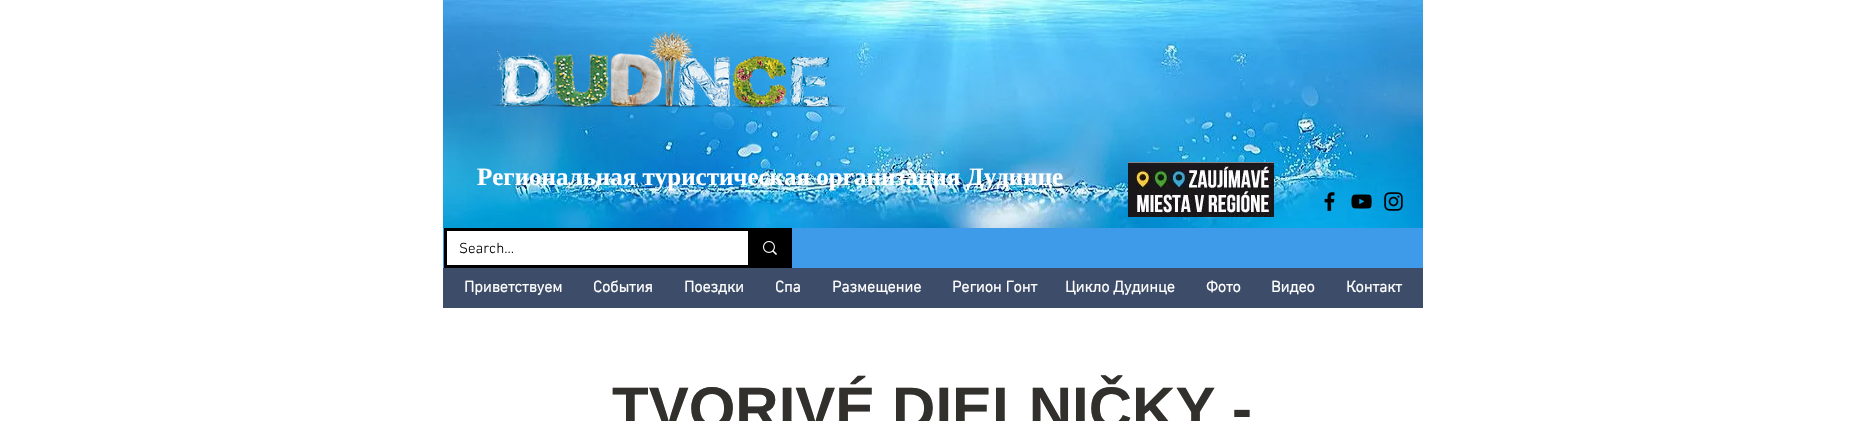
void draw(SkCanvas* canvas) {
    SkPaint paint;
    paint.setAntiAlias(true);
    canvas->clear(0xFFFFFFFF);
    canvas->drawImageRect(SkImages::DeferredFromEncodedData(SkData::MakeFromFileName("img1.png")), SkRect::MakeXYWH(443, 0, 980, 228), SkSamplingOptions());
    canvas->drawImageRect(SkImages::DeferredFromEncodedData(SkData::MakeFromFileName("img2.png")), SkRect::MakeXYWH(490, 29, 354, 83), SkSamplingOptions());
    SkFont font1(fontMgr->matchFamilyStyle("Liberation Serif", SkFontStyle::Bold()), 25);
    font1.setSubpixel(true);
    paint.setColor(0xFFFFFFFF);
    canvas->drawString("Региональная туристическая организация Дудинце", 477, 185, font1, paint);
    canvas->drawImageRect(SkImages::DeferredFromEncodedData(SkData::MakeFromFileName("img3.png")), SkRect::MakeXYWH(1128, 162, 146, 55), SkSamplingOptions());
    canvas->drawImageRect(SkImages::DeferredFromEncodedData(SkData::MakeFromFileName("img4.png")), SkRect::MakeXYWH(1324, 192, 11, 20), SkSamplingOptions());
    canvas->drawImageRect(SkImages::DeferredFromEncodedData(SkData::MakeFromFileName("img5.png")), SkRect::MakeXYWH(1351, 194, 21, 15), SkSamplingOptions());
    canvas->drawImageRect(SkImages::DeferredFromEncodedData(SkData::MakeFromFileName("img6.png")), SkRect::MakeXYWH(1384, 192, 19, 19), SkSamplingOptions());
    paint.setColor(0xFF3D9BE9);
    canvas->drawRect(SkRect::MakeXYWH(443, 228, 980, 40), paint);
    paint.setStyle(SkPaint::kStroke_Style);
    paint.setStrokeWidth(3);
    paint.setColor(0xFF000000);
    canvas->drawRect(SkRect::MakeXYWH(445.5f, 229.5f, 345, 37), paint);
    paint.setStyle(SkPaint::kFill_Style);
    paint.setColor(0xFFFFFFFF);
    canvas->drawRect(SkRect::MakeXYWH(447, 231, 301, 34), paint);
    SkFont font2(fontMgr->matchFamilyStyle("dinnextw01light", SkFontStyle(300, SkFontStyle::kNormal_Width, SkFontStyle::kUpright_Slant)), 15);
    font2.setSubpixel(true);
    paint.setColor(0xFF000000);
    canvas->drawString("Search...", 459, 253, font2, paint);
    canvas->drawRect(SkRect::MakeXYWH(748, 231, 41, 34), paint);
    canvas->drawImageRect(SkImages::DeferredFromEncodedData(SkData::MakeFromFileName("img7.png")), SkRect::MakeXYWH(763, 241, 14, 14), SkSamplingOptions());
    paint.setColor(0xFF3D4D69);
    canvas->drawRect(SkRect::MakeXYWH(443, 268, 980, 40), paint);
    SkFont font3(fontMgr->matchFamilyStyle("dinnextw01light", SkFontStyle::Bold()), 16);
    font3.setSubpixel(true);
    paint.setColor(0xFFFFFFFF);
    canvas->drawString("Приветствуем", 464, 292, font3, paint);
    canvas->drawString("События", 593, 292, font3, paint);
    canvas->drawString("Поездки", 684, 292, font3, paint);
    canvas->drawString("Cпа", 775, 292, font3, paint);
    canvas->drawString("Размещение", 832, 292, font3, paint);
    canvas->drawString("Регион Гонт", 952, 292, font3, paint);
    canvas->drawString("Цикло Дудинце", 1065, 292, font3, paint);
    canvas->drawString("Фото", 1206, 292, font3, paint);
    canvas->drawString("Bидео", 1271, 292, font3, paint);
    canvas->drawString("Контакт", 1346, 292, font3, paint);
    SkFont font4(fontMgr->matchFamilyStyle("Liberation Sans", SkFontStyle::Bold()), 60);
    font4.setSubpixel(true);
    paint.setColor(0xFF31302C);
    canvas->drawString("TVORIVÉ DIELNIČKY -", 612, 429, font4, paint);
}
